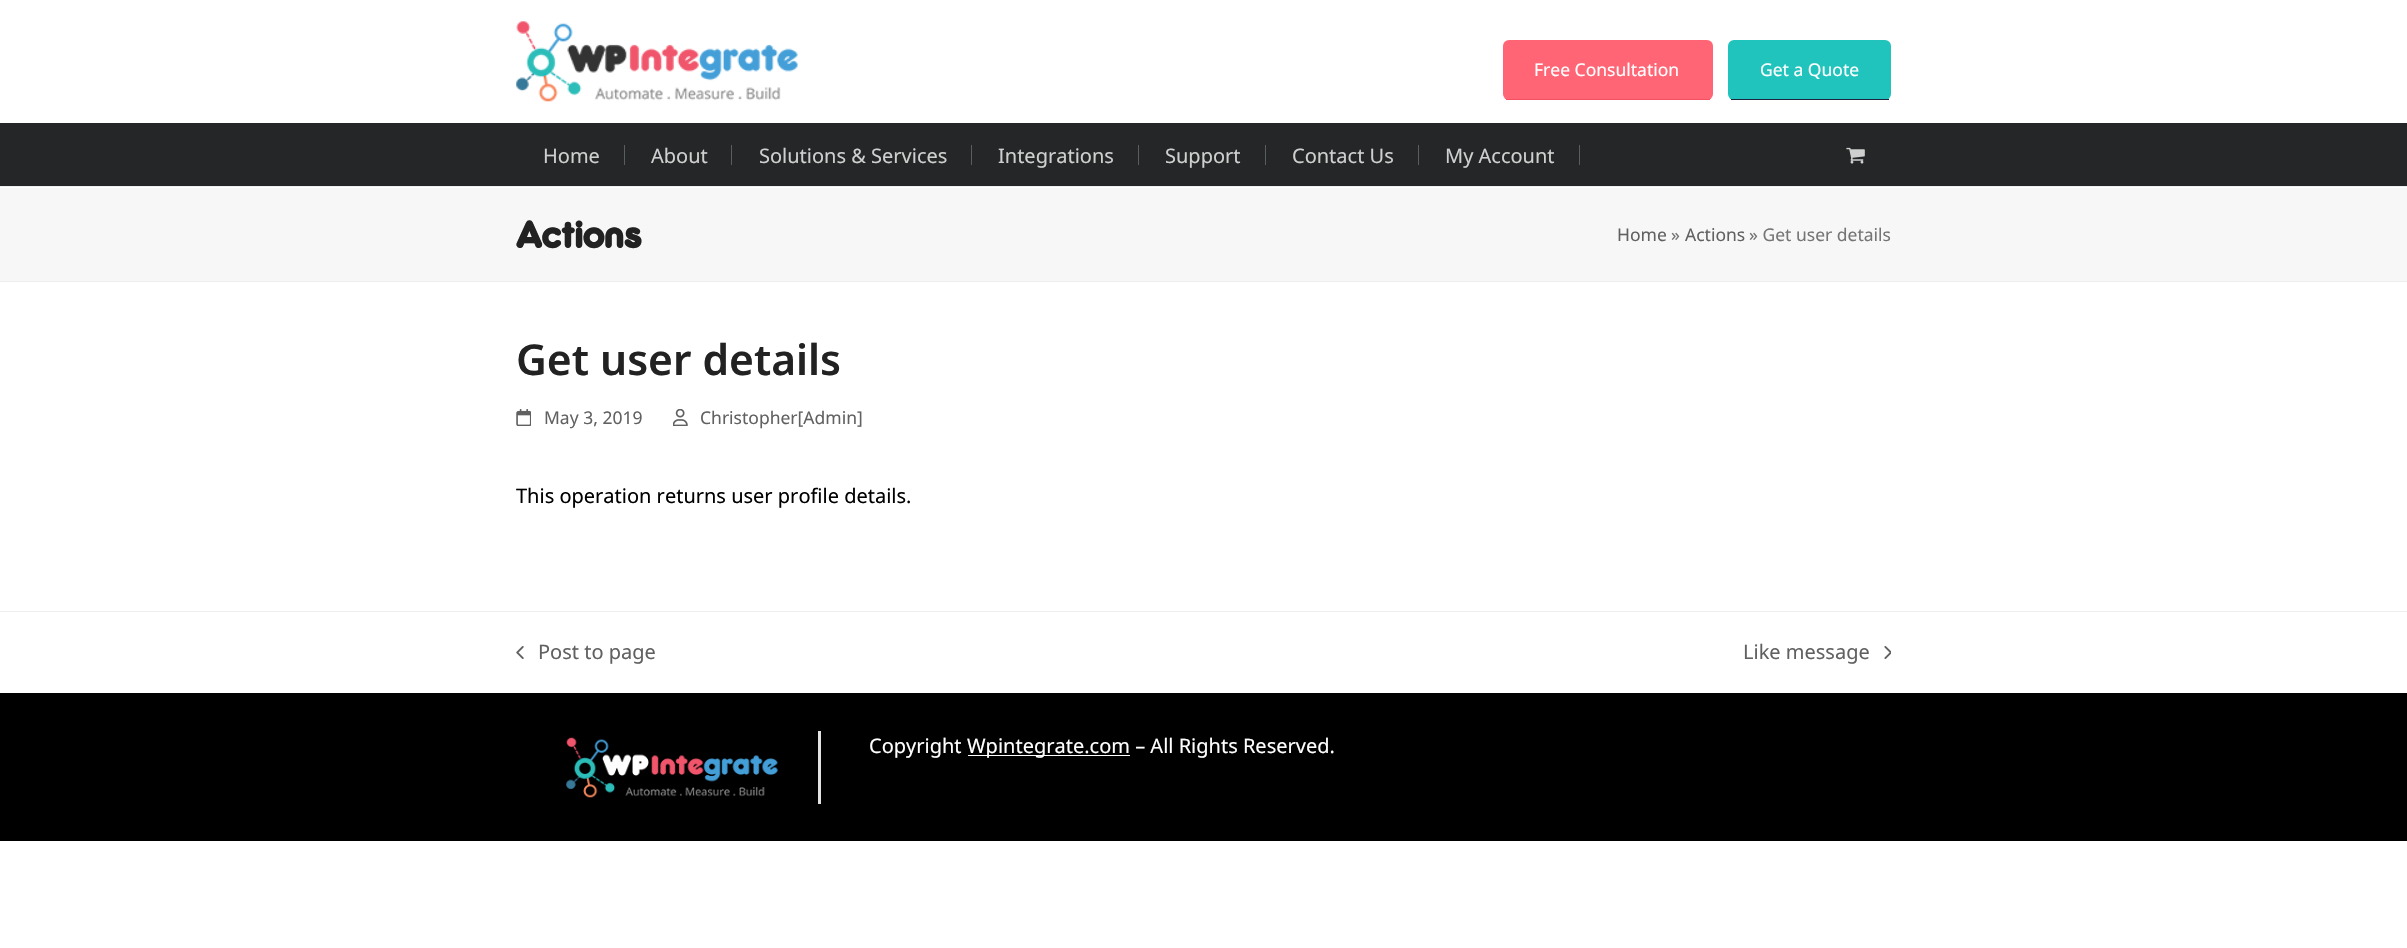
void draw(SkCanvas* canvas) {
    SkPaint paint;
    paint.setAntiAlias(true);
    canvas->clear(0xFFFFFFFF);
    canvas->drawImageRect(SkImages::DeferredFromEncodedData(SkData::MakeFromFileName("img1.png")), SkRect::MakeXYWH(516, 21, 282, 81), SkSamplingOptions());
    paint.setColor(0xFFFF6575);
    canvas->drawRoundRect(SkRect::MakeXYWH(1503, 40, 210, 60), 6, 6, paint);
    paint.setColor(0xFFF35162);
    canvas->drawRect(SkRect::MakeXYWH(1506, 99, 204, 1), paint);
    SkFont font1(fontMgr->matchFamilyStyle("Noto Sans", SkFontStyle::Normal()), 17.5f);
    font1.setSubpixel(true);
    paint.setColor(0xFFFFFFFF);
    canvas->drawString("Free Consultation", 1534, 76, font1, paint);
    paint.setColor(0xFF20C4BD);
    canvas->drawRoundRect(SkRect::MakeXYWH(1728, 40, 163, 60), 6, 6, paint);
    paint.setColor(0xFF1B263E);
    canvas->drawRect(SkRect::MakeXYWH(1731, 99, 158, 1), paint);
    paint.setColor(0xFFFFFFFF);
    canvas->drawString("Get a Quote", 1760, 76, font1, paint);
    paint.setColor(0xFF242627);
    canvas->drawRect(SkRect::MakeXYWH(0, 123, 2407, 63), paint);
    SkFont font2(fontMgr->matchFamilyStyle("Noto Sans", SkFontStyle::Normal()), 20);
    font2.setSubpixel(true);
    paint.setColor(0xFFCFCFCF);
    canvas->drawString("Home", 543, 163, font2, paint);
    paint.setColor(0xFF5A5D5F);
    canvas->drawRect(SkRect::MakeXYWH(624, 145, 1, 20), paint);
    paint.setColor(0xFFCFCFCF);
    canvas->drawString("About", 651, 163, font2, paint);
    paint.setColor(0xFF5A5D5F);
    canvas->drawRect(SkRect::MakeXYWH(731, 145, 1, 20), paint);
    paint.setColor(0xFFCFCFCF);
    canvas->drawString("Solutions & Services", 759, 163, font2, paint);
    paint.setColor(0xFF5A5D5F);
    canvas->drawRect(SkRect::MakeXYWH(971, 145, 1, 20), paint);
    paint.setColor(0xFFCFCFCF);
    canvas->drawString("Integrations", 998, 163, font2, paint);
    paint.setColor(0xFF5A5D5F);
    canvas->drawRect(SkRect::MakeXYWH(1138, 145, 1, 20), paint);
    paint.setColor(0xFFCFCFCF);
    canvas->drawString("Support", 1165, 163, font2, paint);
    paint.setColor(0xFF5A5D5F);
    canvas->drawRect(SkRect::MakeXYWH(1265, 145, 1, 20), paint);
    paint.setColor(0xFFCFCFCF);
    canvas->drawString("Contact Us", 1292, 163, font2, paint);
    paint.setColor(0xFF5A5D5F);
    canvas->drawRect(SkRect::MakeXYWH(1418, 145, 1, 20), paint);
    paint.setColor(0xFFCFCFCF);
    canvas->drawString("My Account", 1445, 163, font2, paint);
    paint.setColor(0xFF5A5D5F);
    canvas->drawRect(SkRect::MakeXYWH(1579, 145, 1, 20), paint);
    canvas->drawImageRect(SkImages::DeferredFromEncodedData(SkData::MakeFromFileName("img2.png")), SkRect::MakeXYWH(1846, 147, 19, 17), SkSamplingOptions());
    paint.setColor(0xFFF7F7F7);
    canvas->drawRect(SkRect::MakeXYWH(0, 188, 2407, 93), paint);
    paint.setColor(0xFFEEEEEE);
    canvas->drawRect(SkRect::MakeXYWH(0, 186, 2407, 1), paint);
    canvas->drawRect(SkRect::MakeXYWH(0, 281, 2407, 1), paint);
    SkFont font3(fontMgr->matchFamilyStyle("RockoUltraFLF", SkFontStyle::Bold()), 35);
    font3.setSubpixel(true);
    paint.setColor(0xFF222222);
    canvas->drawString("Actions", 516, 248, font3, paint);
    paint.setColor(0xFF616161);
    canvas->drawString("Home", 1617, 241, font1, paint);
    paint.setColor(0xFF757575);
    canvas->drawString("»", 1671, 241, font1, paint);
    paint.setColor(0xFF616161);
    canvas->drawString("Actions", 1685, 241, font1, paint);
    paint.setColor(0xFF757575);
    canvas->drawString("» Get user details", 1749, 241, font1, paint);
    SkFont font4(fontMgr->matchFamilyStyle("Noto Sans", SkFontStyle(600, SkFontStyle::kNormal_Width, SkFontStyle::kUpright_Slant)), 42.5f);
    font4.setSubpixel(true);
    paint.setColor(0xFF222222);
    canvas->drawString("Get user details", 516, 375, font4, paint);
    canvas->drawImageRect(SkImages::DeferredFromEncodedData(SkData::MakeFromFileName("img3.png")), SkRect::MakeXYWH(516, 409, 15, 17), SkSamplingOptions());
    paint.setColor(0xFF616161);
    canvas->drawString("May 3, 2019", 544, 424, font1, paint);
    canvas->drawImageRect(SkImages::DeferredFromEncodedData(SkData::MakeFromFileName("img4.png")), SkRect::MakeXYWH(673, 409, 15, 17), SkSamplingOptions());
    canvas->drawString("Christopher[Admin]", 700, 424, font1, paint);
    paint.setColor(0xFF000000);
    canvas->drawString("This operation returns user profile details.", 516, 503, font2, paint);
    paint.setColor(0xFFEEEEEE);
    canvas->drawRect(SkRect::MakeXYWH(0, 611, 2407, 1), paint);
    canvas->drawImageRect(SkImages::DeferredFromEncodedData(SkData::MakeFromFileName("img5.png")), SkRect::MakeXYWH(516, 646, 8, 13), SkSamplingOptions());
    paint.setColor(0xFF616161);
    canvas->drawString("Post to page", 538, 659, font2, paint);
    canvas->drawString("Like message", 1743, 659, font2, paint);
    canvas->drawImageRect(SkImages::DeferredFromEncodedData(SkData::MakeFromFileName("img6.png")), SkRect::MakeXYWH(1884, 646, 7, 13), SkSamplingOptions());
    paint.setColor(0xFF000000);
    canvas->drawRect(SkRect::MakeXYWH(0, 693, 2407, 148), paint);
    paint.setColor(0xFFE2E2E2);
    canvas->drawRect(SkRect::MakeXYWH(818, 731, 3, 73), paint);
    canvas->drawImageRect(SkImages::DeferredFromEncodedData(SkData::MakeFromFileName("img7.png")), SkRect::MakeXYWH(566, 737, 212, 61), SkSamplingOptions());
    paint.setColor(0xFFFFFFFF);
    canvas->drawString("Copyright", 869, 753, font2, paint);
    canvas->drawRect(SkRect::MakeXYWH(968, 755, 162, 1), paint);
    canvas->drawString("Wpintegrate.com – All Rights Reserved.", 967, 753, font2, paint);
}
